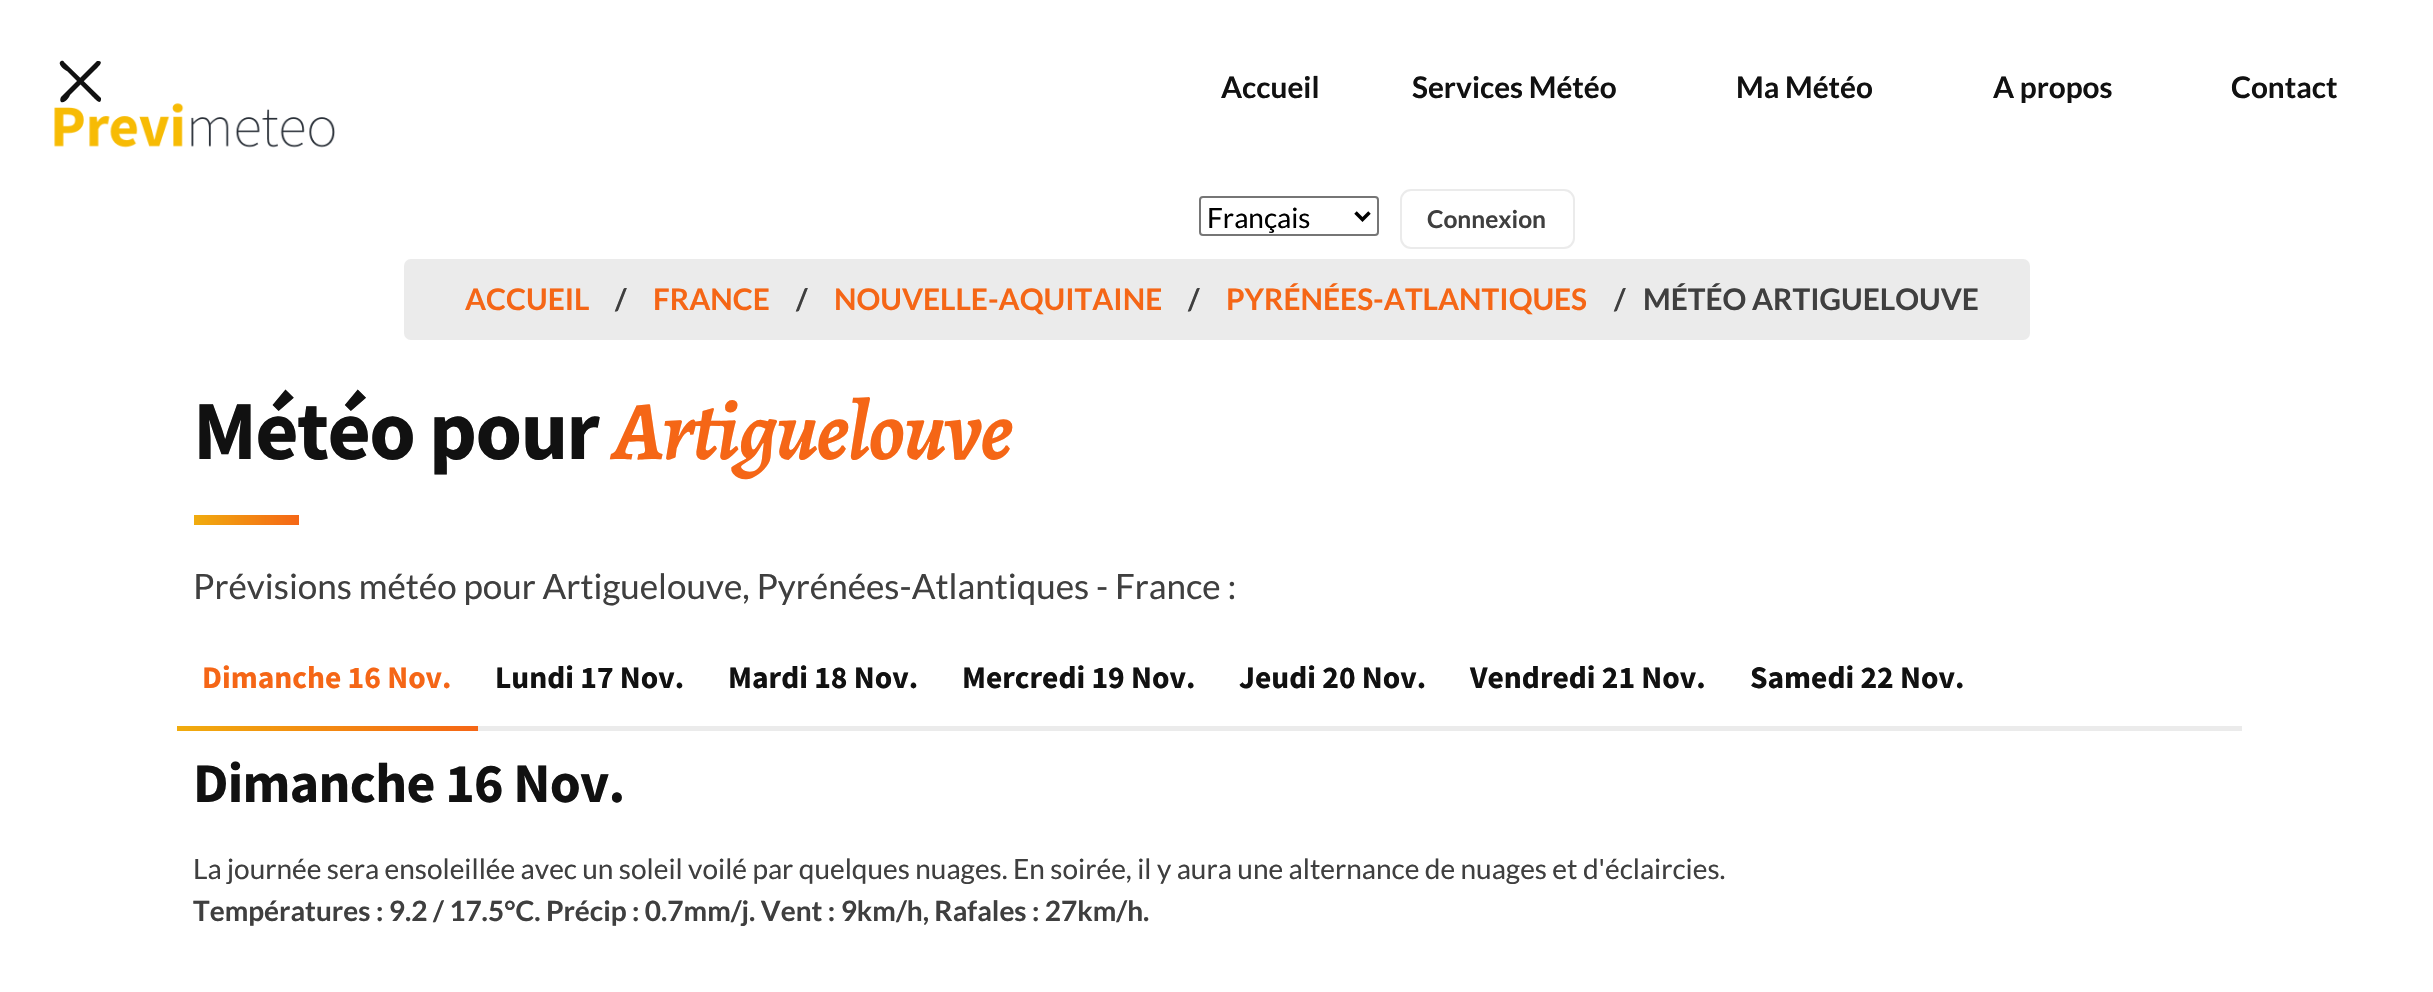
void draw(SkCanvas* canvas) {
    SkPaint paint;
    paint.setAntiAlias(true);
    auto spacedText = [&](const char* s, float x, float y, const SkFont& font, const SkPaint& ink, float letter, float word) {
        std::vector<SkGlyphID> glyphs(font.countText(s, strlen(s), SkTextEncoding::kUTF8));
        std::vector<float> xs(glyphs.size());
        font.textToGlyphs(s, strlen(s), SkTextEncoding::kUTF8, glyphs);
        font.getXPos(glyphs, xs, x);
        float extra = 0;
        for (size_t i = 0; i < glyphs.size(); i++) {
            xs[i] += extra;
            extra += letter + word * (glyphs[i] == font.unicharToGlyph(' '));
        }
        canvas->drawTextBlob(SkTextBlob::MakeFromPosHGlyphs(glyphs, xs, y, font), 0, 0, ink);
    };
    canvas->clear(0xFFFFFFFF);
    canvas->drawImageRect(SkImages::DeferredFromEncodedData(SkData::MakeFromFileName("img1.png")), SkRect::MakeXYWH(54, 103, 281, 45), SkSamplingOptions());
    paint.setColor(0xFF111111);
    canvas->drawPath(SkPathBuilder().moveTo(64, 62).lineTo(101, 98).lineTo(101, 100).cubicTo(100, 105, 95, 99, 91, 95).lineTo(67, 71).cubicTo(66, 71, 58, 65, 60, 62).cubicTo(61, 61, 63, 60, 64, 62).close().detach(), paint);
    canvas->drawPath(SkPathBuilder().moveTo(61, 97).lineTo(97, 61).lineTo(99, 61).cubicTo(104, 62, 98, 67, 94, 71).lineTo(70, 95).cubicTo(70, 96, 65, 104, 61, 102).cubicTo(60, 101, 60, 99, 61, 97).close().detach(), paint);
    SkFont font1(fontMgr->matchFamilyStyle("Lato", SkFontStyle::Bold()), 29.75f);
    font1.setSubpixel(true);
    canvas->drawString("Accueil", 1221, 98, font1, paint);
    canvas->drawString("Services Météo", 1412, 98, font1, paint);
    canvas->drawString("Ma Météo", 1736, 98, font1, paint);
    canvas->drawString("A propos", 1993, 98, font1, paint);
    canvas->drawString("Contact", 2231, 98, font1, paint);
    paint.setStyle(SkPaint::kStroke_Style);
    paint.setStrokeWidth(2);
    paint.setColor(0xFF767676);
    canvas->drawRoundRect(SkRect::MakeXYWH(1200, 197, 178, 38), 3, 3, paint);
    paint.setStrokeWidth(3.5f);
    paint.setColor(0xFF000000);
    canvas->drawPath(SkPathBuilder().moveTo(1355.5f, 212.5f).lineTo(1362.5f, 219.5f).lineTo(1369.5f, 212.5f).detach(), paint);
    SkFont font2(fontMgr->matchFamilyStyle("Lato", SkFontStyle::Normal()), 28);
    font2.setSubpixel(true);
    paint.setStyle(SkPaint::kFill_Style);
    canvas->drawString("Français", 1207, 228, font2, paint);
    paint.setStyle(SkPaint::kStroke_Style);
    paint.setStrokeWidth(2);
    paint.setColor(0xFFEBEBEB);
    canvas->drawRoundRect(SkRect::MakeXYWH(1401, 190, 173, 58), 10, 10, paint);
    SkFont font3(fontMgr->matchFamilyStyle("Lato", SkFontStyle::Bold()), 24.5f);
    font3.setSubpixel(true);
    paint.setStyle(SkPaint::kFill_Style);
    paint.setColor(0xFF3F3F3F);
    canvas->drawString("Connexion", 1427, 228, font3, paint);
    paint.setColor(0xFFEBEBEB);
    canvas->drawRoundRect(SkRect::MakeXYWH(404, 259, 1626, 81), 7, 7, paint);
    paint.setColor(0xFFF56616);
    canvas->drawString("ACCUEIL", 465, 310, font1, paint);
    paint.setColor(0xFF3F3F3F);
    canvas->drawString("/", 615, 310, font1, paint);
    paint.setColor(0xFFF56616);
    canvas->drawString("FRANCE", 653, 310, font1, paint);
    paint.setColor(0xFF3F3F3F);
    canvas->drawString("/", 796, 310, font1, paint);
    paint.setColor(0xFFF56616);
    canvas->drawString("NOUVELLE-AQUITAINE", 834, 310, font1, paint);
    paint.setColor(0xFF3F3F3F);
    canvas->drawString("/", 1188, 310, font1, paint);
    paint.setColor(0xFFF56616);
    canvas->drawString("PYRÉNÉES-ATLANTIQUES", 1226, 310, font1, paint);
    paint.setColor(0xFF3F3F3F);
    canvas->drawString("/", 1614, 310, font1, paint);
    canvas->drawString("MÉTÉO ARTIGUELOUVE", 1643, 310, font1, paint);
    SkFont font4(fontMgr->matchFamilyStyle("Source Sans Pro", SkFontStyle::Bold()), 84);
    font4.setSubpixel(true);
    paint.setColor(0xFF111111);
    spacedText("Météo pour", 193, 459, font4, paint, -1.75f, 0);
    SkFont font5(fontMgr->matchFamilyStyle("Alegreya", SkFontStyle::BoldItalic()), 84);
    font5.setSubpixel(true);
    paint.setColor(0xFFF56616);
    spacedText("Artiguelouve", 613, 459, font5, paint, -1.75f, 0);
    {
        const SkColor colors[] = {0xFFF0AC0E, 0xFFF56616};
        const float stops[] = {0, 1};
        const SkPoint ends[] = {{194, 520}, {299, 520}};
        paint.setShader(SkGradientShader::MakeLinear(ends, colors, stops, 2, SkTileMode::kClamp));
        paint.setAlpha(255);
    }
    canvas->drawRect(SkRect::MakeXYWH(194, 515, 105, 10), paint);
    SkFont font6(fontMgr->matchFamilyStyle("Lato", SkFontStyle::Normal()), 35);
    font6.setSubpixel(true);
    paint.setShader(nullptr);
    paint.setColor(0xFF3F3F3F);
    canvas->drawString("Prévisions météo pour Artiguelouve, Pyrénées-Atlantiques - France :", 193, 599, font6, paint);
    paint.setColor(0xFFEBEBEB);
    canvas->drawRect(SkRect::MakeXYWH(478, 726, 1764, 5), paint);
    SkFont font7(fontMgr->matchFamilyStyle("Source Sans Pro", SkFontStyle::Bold()), 31.5f);
    font7.setSubpixel(true);
    paint.setColor(0xFFF56616);
    canvas->drawString("Dimanche 16 Nov.", 202, 688, font7, paint);
    {
        const SkColor colors[] = {0xFFF0AC0E, 0xFFF56616};
        const float stops[] = {0, 1};
        const SkPoint ends[] = {{177, 729}, {478, 729}};
        paint.setShader(SkGradientShader::MakeLinear(ends, colors, stops, 2, SkTileMode::kClamp));
        paint.setAlpha(255);
    }
    canvas->drawRect(SkRect::MakeXYWH(177, 726, 301, 5), paint);
    paint.setShader(nullptr);
    paint.setColor(0xFF111111);
    canvas->drawString("Lundi 17 Nov.", 495, 688, font7, paint);
    canvas->drawString("Mardi 18 Nov.", 728, 688, font7, paint);
    canvas->drawString("Mercredi 19 Nov.", 962, 688, font7, paint);
    canvas->drawString("Jeudi 20 Nov.", 1239, 688, font7, paint);
    canvas->drawString("Vendredi 21 Nov.", 1470, 688, font7, paint);
    canvas->drawString("Samedi 22 Nov.", 1750, 688, font7, paint);
    SkFont font8(fontMgr->matchFamilyStyle("Source Sans Pro", SkFontStyle::Bold()), 56);
    font8.setSubpixel(true);
    spacedText("Dimanche 16 Nov.", 193, 802, font8, paint, -0.75f, 0);
    paint.setColor(0xFF3F3F3F);
    canvas->drawString("La journée sera ensoleillée avec un soleil voilé par quelques nuages. En soirée, il y aura une alternance de nuages et d'éclaircies.", 193, 879, font2, paint);
    SkFont font9(fontMgr->matchFamilyStyle("Lato", SkFontStyle::Bold()), 28);
    font9.setSubpixel(true);
    canvas->drawString("Températures : 9.2 / 17.5°C. Précip : 0.7mm/j. Vent : 9km/h, Rafales : 27km/h.", 193, 921, font9, paint);
}
